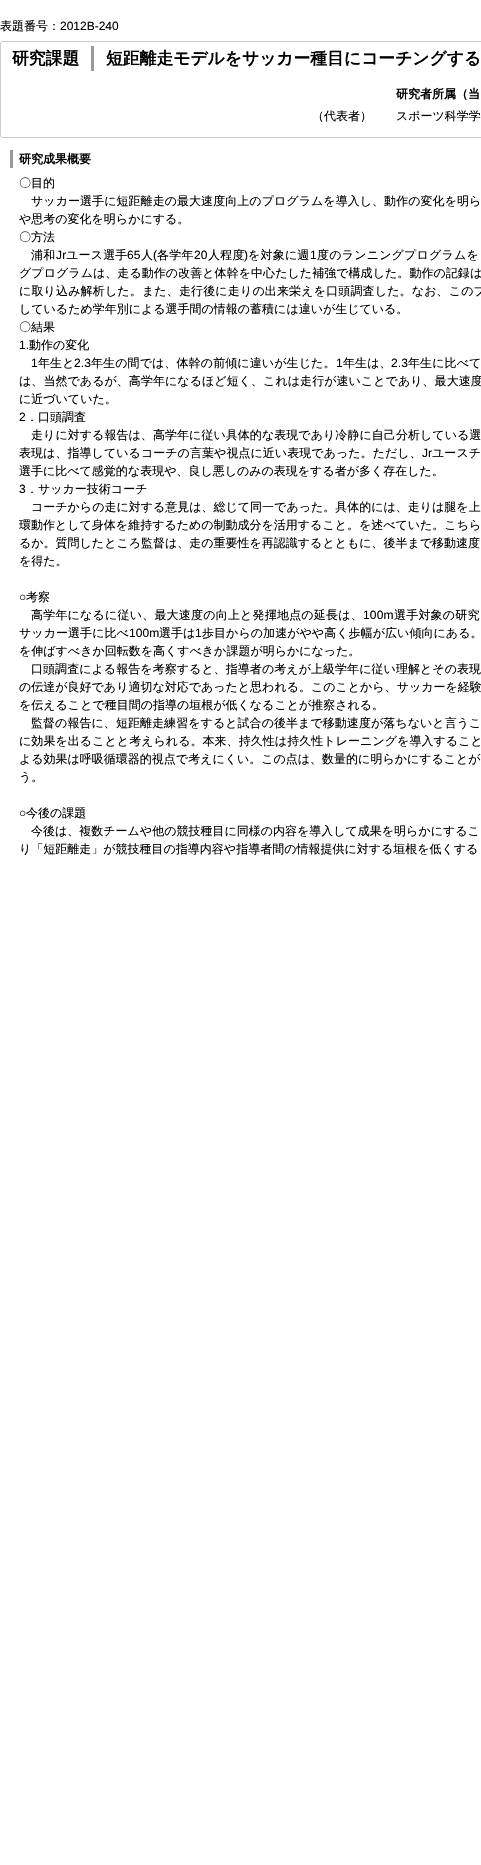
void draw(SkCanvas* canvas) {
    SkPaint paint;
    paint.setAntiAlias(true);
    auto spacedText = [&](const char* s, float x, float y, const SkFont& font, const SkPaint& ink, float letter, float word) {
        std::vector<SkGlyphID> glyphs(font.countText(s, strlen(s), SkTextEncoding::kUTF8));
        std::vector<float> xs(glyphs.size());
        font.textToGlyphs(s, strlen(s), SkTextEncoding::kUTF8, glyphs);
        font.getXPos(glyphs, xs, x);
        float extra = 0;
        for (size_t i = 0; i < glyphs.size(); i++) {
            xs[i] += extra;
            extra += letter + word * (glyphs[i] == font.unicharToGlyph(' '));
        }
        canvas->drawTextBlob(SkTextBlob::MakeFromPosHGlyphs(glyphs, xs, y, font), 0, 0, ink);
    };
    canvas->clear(0xFFFFFFFF);
    SkFont font1(fontMgr->matchFamilyStyle("WenQuanYi Zen Hei", SkFontStyle(500, SkFontStyle::kNormal_Width, SkFontStyle::kUpright_Slant)), 12);
    font1.setSubpixel(true);
    paint.setColor(0xFF000000);
    canvas->drawString("表題番号：", 0, 30, font1, paint);
    SkFont font2(fontMgr->matchFamilyStyle("Liberation Sans", SkFontStyle::Normal()), 12);
    font2.setSubpixel(true);
    canvas->drawString("2012B-240", 60, 30, font2, paint);
    paint.setStyle(SkPaint::kStroke_Style);
    paint.setStrokeWidth(1);
    paint.setColor(0xFFCCCCCC);
    canvas->drawRoundRect(SkRect::MakeXYWH(0.5f, 41.5f, 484, 96), 2.5f, 2.5f, paint);
    SkFont font3(fontMgr->matchFamilyStyle("WenQuanYi Zen Hei", SkFontStyle::Bold()), 16.8f);
    font3.setSubpixel(true);
    paint.setStyle(SkPaint::kFill_Style);
    paint.setColor(0xFF000000);
    canvas->drawString("研究課題", 12, 64, font3, paint);
    paint.setColor(0xFF999999);
    canvas->drawRect(SkRect::MakeXYWH(91, 46, 3, 25), paint);
    paint.setColor(0xFF000000);
    canvas->drawString("短距離走モデルをサッカー種目にコーチングする", 106, 64, font3, paint);
    SkFont font4(fontMgr->matchFamilyStyle("WenQuanYi Zen Hei", SkFontStyle::Bold()), 12);
    font4.setSubpixel(true);
    canvas->drawString("研究者所属（当", 396, 98, font4, paint);
    canvas->drawString("（代表者）", 312, 120, font1, paint);
    canvas->drawString("スポーツ科学学", 396, 120, font1, paint);
    paint.setColor(0xFF999999);
    canvas->drawRect(SkRect::MakeXYWH(10, 150, 3, 18), paint);
    paint.setColor(0xFF000000);
    canvas->drawString("研究成果概要", 19, 163, font4, paint);
    canvas->drawString("〇目的", 19, 187, font1, paint);
    spacedText("サッカー選手に短距離走の最大速度向上のプログラムを導入し、動作の変化を明ら", 31, 205, font1, paint, 0.05f, 0);
    canvas->drawString("や思考の変化を明らかにする。", 19, 223, font1, paint);
    canvas->drawString("〇方法", 19, 241, font1, paint);
    spacedText("浦和", 31, 259, font1, paint, 0.2f, 0);
    spacedText("Jr", 56, 259, font2, paint, 0.2f, 0);
    spacedText("ユース選手", 66, 259, font1, paint, 0.2f, 0);
    spacedText("65", 127, 259, font2, paint, 0.2f, 0);
    spacedText("人", 141, 259, font1, paint, 0.2f, 0);
    spacedText("(", 153, 259, font2, paint, 0.2f, 0);
    spacedText("各学年", 157, 259, font1, paint, 0.2f, 0);
    spacedText("20", 194, 259, font2, paint, 0.2f, 0);
    spacedText("人程度", 208, 259, font1, paint, 0.2f, 0);
    spacedText(")", 244, 259, font2, paint, 0.2f, 0);
    spacedText("を対象に週", 248, 259, font1, paint, 0.2f, 0);
    spacedText("1", 310, 259, font2, paint, 0.2f, 0);
    spacedText("度のランニングプログラムを", 317, 259, font1, paint, 0.2f, 0);
    spacedText("グプログラムは、走る動作の改善と体幹を中心たした補強で構成した。動作の記録は", 19, 277, font1, paint, 0.05f, 0);
    spacedText("に取り込み解析した。また、走行後に走りの出来栄えを口頭調査した。なお、このプ", 19, 295, font1, paint, 0.15f, 0);
    canvas->drawString("しているため学年別による選手間の情報の蓄積には違いが生じている。", 19, 313, font1, paint);
    canvas->drawString("〇結果", 19, 331, font1, paint);
    canvas->drawString("1.", 19, 349, font2, paint);
    canvas->drawString("動作の変化", 29, 349, font1, paint);
    spacedText("1", 31, 367, font2, paint, 0.1f, 0);
    spacedText("年生と", 38, 367, font1, paint, 0.1f, 0);
    spacedText("2.3", 74, 367, font2, paint, 0.1f, 0);
    spacedText("年生の間では、体幹の前傾に違いが生じた。", 91, 367, font1, paint, 0.1f, 0);
    spacedText("1", 336, 367, font2, paint, 0.1f, 0);
    spacedText("年生は、", 343, 367, font1, paint, 0.1f, 0);
    spacedText("2.3", 391, 367, font2, paint, 0.1f, 0);
    spacedText("年生に比べて", 408, 367, font1, paint, 0.1f, 0);
    spacedText("は、当然であるが、高学年になるほど短く、これは走行が速いことであり、最大速度", 19, 385, font1, paint, 0.05f, 0);
    canvas->drawString("に近づいていた。", 19, 403, font1, paint);
    canvas->drawString("2", 19, 421, font2, paint);
    canvas->drawString("．口頭調査", 26, 421, font1, paint);
    spacedText("走りに対する報告は、高学年に従い具体的な表現であり冷静に自己分析している選", 31, 439, font1, paint, 0.05f, 0);
    spacedText("表現は、指導しているコーチの言葉や視点に近い表現であった。ただし、", 19, 457, font1, paint, 0.05f, 0);
    spacedText("Jr", 422, 457, font2, paint, 0.05f, 0);
    spacedText("ユースチ", 432, 457, font1, paint, 0.05f, 0);
    canvas->drawString("選手に比べて感覚的な表現や、良し悪しのみの表現をする者が多く存在した。", 19, 475, font1, paint);
    canvas->drawString("3", 19, 493, font2, paint);
    canvas->drawString("．サッカー技術コーチ", 26, 493, font1, paint);
    canvas->drawString("コーチからの走に対する意見は、総じて同一であった。具体的には、走りは腿を上", 31, 511, font1, paint);
    canvas->drawString("環動作として身体を維持するための制動成分を活用すること。を述べていた。こちら", 19, 529, font1, paint);
    canvas->drawString("るか。質問したところ監督は、走の重要性を再認識するとともに、後半まで移動速度", 19, 547, font1, paint);
    canvas->drawString("を得た。", 19, 565, font1, paint);
    canvas->drawString("○", 19, 601, font2, paint);
    canvas->drawString("考察", 26, 601, font1, paint);
    spacedText("高学年になるに従い、最大速度の向上と発揮地点の延長は、", 31, 619, font1, paint, 0.2f, 0);
    spacedText("100m", 363, 619, font2, paint, 0.2f, 0);
    spacedText("選手対象の研究", 394, 619, font1, paint, 0.2f, 0);
    spacedText("サッカー選手に比べ", 19, 637, font1, paint, 0.05f, 0);
    spacedText("100m", 129, 637, font2, paint, 0.05f, 0);
    spacedText("選手は", 159, 637, font1, paint, 0.05f, 0);
    spacedText("1", 195, 637, font2, paint, 0.05f, 0);
    spacedText("歩目からの加速がやや高く歩幅が広い傾向にある。", 202, 637, font1, paint, 0.05f, 0);
    canvas->drawString("を伸ばすべきか回転数を高くすべきか課題が明らかになった。", 19, 655, font1, paint);
    spacedText("口頭調査による報告を考察すると、指導者の考えが上級学年に従い理解とその表現", 31, 673, font1, paint, 0.05f, 0);
    canvas->drawString("の伝達が良好であり適切な対応であったと思われる。このことから、サッカーを経験", 19, 691, font1, paint);
    canvas->drawString("を伝えることで種目間の指導の垣根が低くなることが推察される。", 19, 709, font1, paint);
    spacedText("監督の報告に、短距離走練習をすると試合の後半まで移動速度が落ちないと言うこ", 31, 727, font1, paint, 0.05f, 0);
    spacedText("に効果を出ることと考えられる。本来、持久性は持久性トレーニングを導入すること", 19, 745, font1, paint, 0.05f, 0);
    canvas->drawString("よる効果は呼吸循環器的視点で考えにくい。この点は、数量的に明らかにすることが", 19, 763, font1, paint);
    canvas->drawString("う。", 19, 781, font1, paint);
    canvas->drawString("○", 19, 817, font2, paint);
    canvas->drawString("今後の課題", 26, 817, font1, paint);
    canvas->drawString("今後は、複数チームや他の競技種目に同様の内容を導入して成果を明らかにするこ", 31, 835, font1, paint);
    canvas->drawString("り「短距離走」が競技種目の指導内容や指導者間の情報提供に対する垣根を低くする", 19, 853, font1, paint);
}
